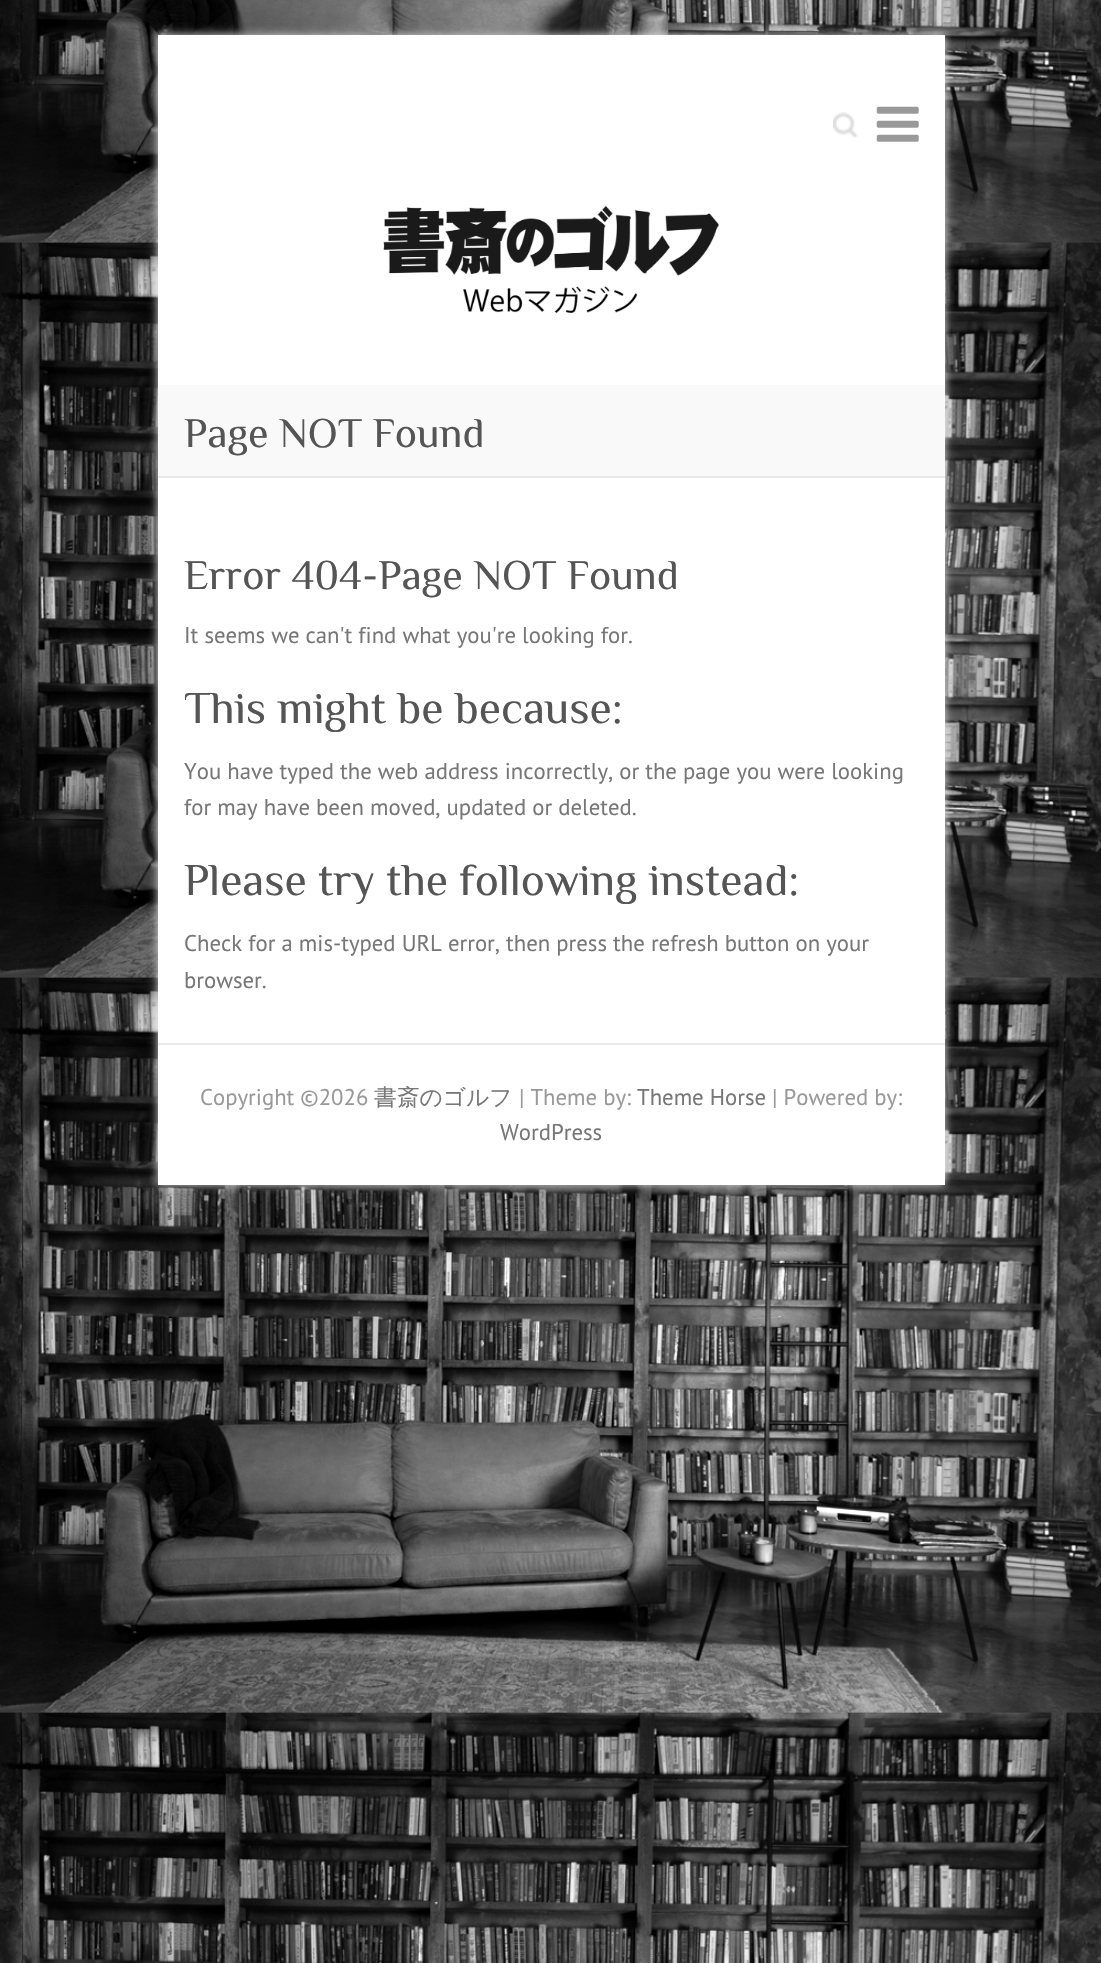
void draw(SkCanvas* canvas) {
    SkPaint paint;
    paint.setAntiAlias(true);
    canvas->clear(0xFFFFFFFF);
    canvas->drawImageRect(SkImages::DeferredFromEncodedData(SkData::MakeFromFileName("img1.png")), SkRect::MakeXYWH(0, 0, 1101, 1963), SkSamplingOptions());
    paint.setColor(0xFFDDDDDD);
    paint.setMaskFilter(SkMaskFilter::MakeBlur(kNormal_SkBlurStyle, 4.5f));
    canvas->drawRect(SkRect::MakeXYWH(158, 35, 787, 1150), paint);
    paint.setMaskFilter(nullptr);
    paint.setColor(0xFFFFFFFF);
    canvas->drawRect(SkRect::MakeXYWH(158, 35, 787, 1150), paint);
    canvas->drawImageRect(SkImages::DeferredFromEncodedData(SkData::MakeFromFileName("img2.png")), SkRect::MakeXYWH(833, 112, 25, 26), SkSamplingOptions());
    canvas->drawImageRect(SkImages::DeferredFromEncodedData(SkData::MakeFromFileName("img3.png")), SkRect::MakeXYWH(876, 106, 43, 36), SkSamplingOptions());
    canvas->drawImageRect(SkImages::DeferredFromEncodedData(SkData::MakeFromFileName("img4.png")), SkRect::MakeXYWH(383, 205, 336, 109), SkSamplingOptions());
    paint.setColor(0xFFF9F9F9);
    canvas->drawRect(SkRect::MakeXYWH(158, 385, 787, 91), paint);
    paint.setColor(0xFFEAEAEA);
    canvas->drawRect(SkRect::MakeXYWH(158, 476, 787, 2), paint);
    SkFont font1(fontMgr->matchFamilyStyle("Philosopher", SkFontStyle::Normal()), 42);
    font1.setSubpixel(true);
    paint.setColor(0xFF555555);
    canvas->drawString("Page NOT Found", 184, 447, font1, paint);
    canvas->drawString("Error 404-Page NOT Found", 184, 589, font1, paint);
    SkFont font2(fontMgr->matchFamilyStyle("PT Sans", SkFontStyle::Normal()), 22.75f);
    font2.setSubpixel(true);
    paint.setColor(0xFF777777);
    canvas->drawString("It seems we can't find what you're looking for.", 184, 643, font2, paint);
    SkFont font3(fontMgr->matchFamilyStyle("Philosopher", SkFontStyle::Normal()), 45.5f);
    font3.setSubpixel(true);
    paint.setColor(0xFF555555);
    canvas->drawString("This might be because:", 184, 723, font3, paint);
    paint.setColor(0xFF777777);
    canvas->drawString("You have typed the web address incorrectly, or the page you were looking", 184, 779, font2, paint);
    canvas->drawString("for may have been moved, updated or deleted.", 184, 815, font2, paint);
    paint.setColor(0xFF555555);
    canvas->drawString("Please try the following instead:", 184, 895, font3, paint);
    paint.setColor(0xFF777777);
    canvas->drawString("Check for a mis-typed URL error, then press the refresh button on your", 184, 951, font2, paint);
    canvas->drawString("browser.", 184, 988, font2, paint);
    paint.setColor(0xFFEAEAEA);
    canvas->drawRect(SkRect::MakeXYWH(158, 1043, 787, 2), paint);
    paint.setColor(0xFF999999);
    canvas->drawString("Copyright ©2026", 200, 1105, font2, paint);
    SkFont font4(fontMgr->matchFamilyStyle("WenQuanYi Zen Hei", SkFontStyle(500, SkFontStyle::kNormal_Width, SkFontStyle::kUpright_Slant)), 22.75f);
    font4.setSubpixel(true);
    paint.setColor(0xFF777777);
    canvas->drawString("書斎のゴルフ", 374, 1105, font4, paint);
    paint.setColor(0xFF999999);
    canvas->drawString("| Theme by:", 519, 1105, font2, paint);
    paint.setColor(0xFF777777);
    canvas->drawString("Theme Horse", 637, 1105, font2, paint);
    paint.setColor(0xFF999999);
    canvas->drawString("| Powered by:", 772, 1105, font2, paint);
    paint.setColor(0xFF777777);
    canvas->drawString("WordPress", 500, 1140, font2, paint);
}
